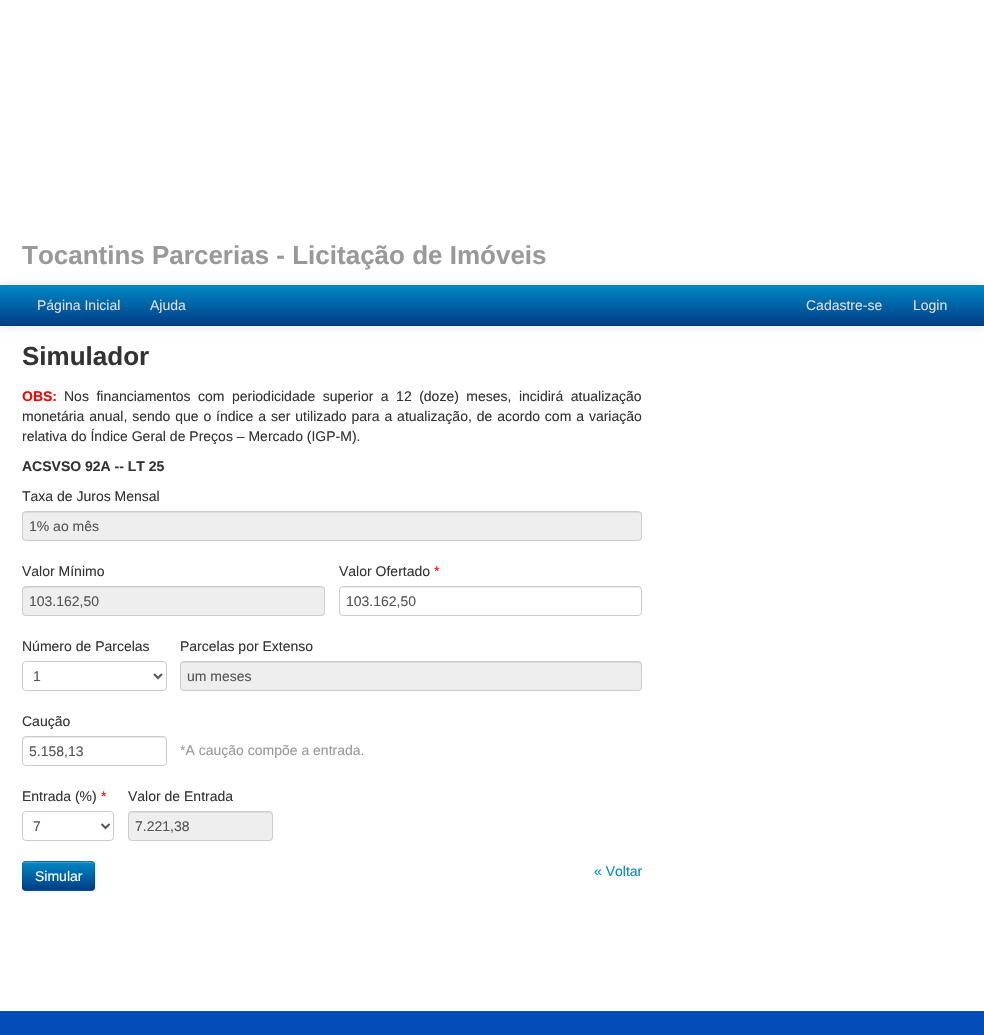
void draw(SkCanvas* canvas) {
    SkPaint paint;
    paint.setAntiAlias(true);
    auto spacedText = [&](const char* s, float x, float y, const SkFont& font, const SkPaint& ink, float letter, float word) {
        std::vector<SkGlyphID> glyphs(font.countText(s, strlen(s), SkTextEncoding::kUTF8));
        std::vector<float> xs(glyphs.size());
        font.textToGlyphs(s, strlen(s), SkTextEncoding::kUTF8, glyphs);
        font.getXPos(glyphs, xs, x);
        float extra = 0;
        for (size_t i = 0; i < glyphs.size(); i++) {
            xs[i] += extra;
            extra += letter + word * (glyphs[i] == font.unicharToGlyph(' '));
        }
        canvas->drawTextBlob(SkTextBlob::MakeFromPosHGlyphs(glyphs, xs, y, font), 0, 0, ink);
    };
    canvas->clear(0xFFFFFFFF);
    SkFont font1(fontMgr->matchFamilyStyle("Liberation Sans", SkFontStyle::Bold()), 26);
    font1.setSubpixel(true);
    paint.setColor(0xFF999999);
    canvas->drawString("Tocantins Parcerias - Licitação de Imóveis", 22, 264, font1, paint);
    paint.setColor(0x1A000000);
    paint.setMaskFilter(SkMaskFilter::MakeBlur(kNormal_SkBlurStyle, 5));
    canvas->drawRect(SkRect::MakeXYWH(0, 286, 984, 41), paint);
    paint.setMaskFilter(nullptr);
    {
        const SkColor colors[] = {0xFF0089C3, 0xFF003D86};
        const float stops[] = {0, 1};
        const SkPoint ends[] = {{492, 285}, {492, 325}};
        paint.setShader(SkGradientShader::MakeLinear(ends, colors, stops, 2, SkTileMode::kClamp));
        paint.setAlpha(255);
    }
    canvas->drawRect(SkRect::MakeXYWH(0, 285, 984, 40), paint);
    paint.setShader(nullptr);
    paint.setColor(0xFF003D86);
    canvas->drawRect(SkRect::MakeXYWH(0, 325, 984, 1), paint);
    SkFont font2(fontMgr->matchFamilyStyle("Liberation Sans", SkFontStyle::Normal()), 14);
    font2.setSubpixel(true);
    paint.setColor(0xFFDDDDDD);
    canvas->drawString("Página Inicial", 37, 310, font2, paint);
    canvas->drawString("Ajuda", 150, 310, font2, paint);
    canvas->drawString("Cadastre-se", 806, 310, font2, paint);
    canvas->drawString("Login", 913, 310, font2, paint);
    paint.setColor(0xFF333333);
    canvas->drawString("Simulador", 22, 365, font1, paint);
    SkFont font3(fontMgr->matchFamilyStyle("Liberation Sans", SkFontStyle::Bold()), 14);
    font3.setSubpixel(true);
    paint.setColor(0xFFFF0000);
    canvas->drawString("OBS:", 22, 401, font3, paint);
    paint.setColor(0xFF333333);
    spacedText("Nos financiamentos com periodicidade superior a 12 (doze) meses, incidirá atualização", 64, 401, font2, paint, 0, 3.6f);
    spacedText("monetária anual, sendo que o", 22, 421, font2, paint, 0, 1);
    spacedText("índice a ser utilizado para a atualização, de acordo com a variação", 216, 421, font2, paint, 0, 1);
    canvas->drawString("relativa do Índice Geral de Preços – Mercado (IGP-M).", 22, 441, font2, paint);
    canvas->drawString("ACSVSO 92A -- LT 25", 22, 471, font3, paint);
    canvas->drawString("Taxa de Juros Mensal", 22, 501, font2, paint);
    paint.setColor(0xFFEEEEEE);
    canvas->drawRoundRect(SkRect::MakeXYWH(22, 511, 620, 30), 4, 4, paint);
    paint.setColor(0xFFDCDCDC);
    canvas->drawPath(SkPathBuilder().moveTo(26, 513).lineTo(638, 513).cubicTo(640, 513, 641, 514, 641, 516).lineTo(641, 515).cubicTo(641, 513, 640, 512, 638, 512).lineTo(26, 512).cubicTo(24, 512, 23, 513, 23, 515).lineTo(23, 516).cubicTo(23, 514, 24, 513, 26, 513).close().detach(), paint);
    paint.setStyle(SkPaint::kStroke_Style);
    paint.setStrokeWidth(1);
    paint.setColor(0xFFCCCCCC);
    canvas->drawRoundRect(SkRect::MakeXYWH(22.5f, 511.5f, 619, 29), 3.5f, 3.5f, paint);
    paint.setStyle(SkPaint::kFill_Style);
    paint.setColor(0xFF555555);
    canvas->drawString("1% ao mês", 29, 531, font2, paint);
    paint.setColor(0xFF333333);
    canvas->drawString("Valor Mínimo", 22, 576, font2, paint);
    paint.setColor(0xFFEEEEEE);
    canvas->drawRoundRect(SkRect::MakeXYWH(22, 586, 303, 30), 4, 4, paint);
    paint.setColor(0xFFDCDCDC);
    canvas->drawPath(SkPathBuilder().moveTo(26, 588).lineTo(321, 588).cubicTo(323, 588, 324, 589, 324, 591).lineTo(323, 588).lineTo(322, 587).lineTo(26, 587).cubicTo(24, 587, 23, 589, 23, 591).cubicTo(23, 589, 24, 588, 26, 588).close().detach(), paint);
    paint.setStyle(SkPaint::kStroke_Style);
    paint.setColor(0xFFCCCCCC);
    canvas->drawRoundRect(SkRect::MakeXYWH(22.5f, 586.5f, 302, 29), 3.5f, 3.5f, paint);
    paint.setStyle(SkPaint::kFill_Style);
    paint.setColor(0xFF555555);
    canvas->drawString("103.162,50", 29, 606, font2, paint);
    paint.setColor(0xFF333333);
    canvas->drawString("Valor Ofertado", 339, 576, font2, paint);
    paint.setColor(0xFFFF0000);
    canvas->drawString("*", 434, 576, font2, paint);
    paint.setColor(0xFFECECEC);
    canvas->drawPath(SkPathBuilder().moveTo(343, 588).lineTo(638, 588).cubicTo(640, 588, 641, 589, 641, 591).lineTo(640, 588).lineTo(639, 587).lineTo(343, 587).cubicTo(341, 587, 340, 589, 340, 591).cubicTo(340, 589, 341, 588, 343, 588).close().detach(), paint);
    paint.setStyle(SkPaint::kStroke_Style);
    paint.setColor(0xFFCCCCCC);
    canvas->drawRoundRect(SkRect::MakeXYWH(339.5f, 586.5f, 302, 29), 3.5f, 3.5f, paint);
    paint.setStyle(SkPaint::kFill_Style);
    paint.setColor(0xFF555555);
    canvas->drawString("103.162,50", 346, 606, font2, paint);
    paint.setColor(0xFF333333);
    canvas->drawString("Número de Parcelas", 22, 651, font2, paint);
    paint.setStyle(SkPaint::kStroke_Style);
    paint.setColor(0xFFCCCCCC);
    canvas->drawRoundRect(SkRect::MakeXYWH(22.5f, 661.5f, 144, 29), 3.5f, 3.5f, paint);
    paint.setStrokeWidth(2);
    paint.setColor(0xFF555555);
    canvas->drawPath(SkPathBuilder().moveTo(154, 674).lineTo(158, 678).lineTo(162, 674).detach(), paint);
    paint.setStyle(SkPaint::kFill_Style);
    canvas->drawString("1", 33, 681, font2, paint);
    paint.setColor(0xFF333333);
    canvas->drawString("Parcelas por Extenso", 180, 651, font2, paint);
    paint.setColor(0xFFEEEEEE);
    canvas->drawRoundRect(SkRect::MakeXYWH(180, 661, 462, 30), 4, 4, paint);
    paint.setColor(0xFFDCDCDC);
    canvas->drawPath(SkPathBuilder().moveTo(184, 663).lineTo(638, 663).cubicTo(640, 663, 641, 664, 641, 666).lineTo(641, 664).lineTo(639, 662).lineTo(184, 662).cubicTo(182, 662, 181, 664, 181, 666).cubicTo(181, 664, 182, 663, 184, 663).close().detach(), paint);
    paint.setStyle(SkPaint::kStroke_Style);
    paint.setStrokeWidth(1);
    paint.setColor(0xFFCCCCCC);
    canvas->drawRoundRect(SkRect::MakeXYWH(180.5f, 661.5f, 461, 29), 3.5f, 3.5f, paint);
    paint.setStyle(SkPaint::kFill_Style);
    paint.setColor(0xFF555555);
    canvas->drawString("um meses", 187, 681, font2, paint);
    paint.setColor(0xFF333333);
    canvas->drawString("Caução", 22, 726, font2, paint);
    paint.setColor(0xFFECECEC);
    canvas->drawPath(SkPathBuilder().moveTo(26, 738).lineTo(163, 738).cubicTo(165, 738, 166, 739, 166, 741).lineTo(166, 740).cubicTo(166, 738, 165, 737, 163, 737).lineTo(26, 737).cubicTo(24, 737, 23, 738, 23, 740).lineTo(23, 741).cubicTo(23, 739, 24, 738, 26, 738).close().detach(), paint);
    paint.setStyle(SkPaint::kStroke_Style);
    paint.setColor(0xFFCCCCCC);
    canvas->drawRoundRect(SkRect::MakeXYWH(22.5f, 736.5f, 144, 29), 3.5f, 3.5f, paint);
    paint.setStyle(SkPaint::kFill_Style);
    paint.setColor(0xFF555555);
    canvas->drawString("5.158,13", 29, 756, font2, paint);
    paint.setColor(0xFF999999);
    canvas->drawString("*A caução compõe a entrada.", 180, 755, font2, paint);
    paint.setColor(0xFF333333);
    canvas->drawString("Entrada (%)", 22, 801, font2, paint);
    paint.setColor(0xFFFF0000);
    canvas->drawString("*", 101, 801, font2, paint);
    paint.setStyle(SkPaint::kStroke_Style);
    paint.setColor(0xFFCCCCCC);
    canvas->drawRoundRect(SkRect::MakeXYWH(22.5f, 811.5f, 91, 29), 3.5f, 3.5f, paint);
    paint.setStrokeWidth(2);
    paint.setColor(0xFF555555);
    canvas->drawPath(SkPathBuilder().moveTo(101.5f, 824).lineTo(105.5f, 828).lineTo(109.5f, 824).detach(), paint);
    paint.setStyle(SkPaint::kFill_Style);
    canvas->drawString("7", 33, 831, font2, paint);
    paint.setColor(0xFF333333);
    canvas->drawString("Valor de Entrada", 128, 801, font2, paint);
    paint.setColor(0xFFEEEEEE);
    canvas->drawRoundRect(SkRect::MakeXYWH(128, 811, 145, 30), 4, 4, paint);
    paint.setColor(0xFFDCDCDC);
    canvas->drawPath(SkPathBuilder().moveTo(132, 813).lineTo(269, 813).cubicTo(271, 813, 272, 814, 272, 816).lineTo(272, 815).cubicTo(272, 813, 271, 812, 269, 812).lineTo(132, 812).cubicTo(130, 812, 129, 813, 129, 815).lineTo(129, 816).cubicTo(129, 814, 130, 813, 132, 813).close().detach(), paint);
    paint.setStyle(SkPaint::kStroke_Style);
    paint.setStrokeWidth(1);
    paint.setColor(0xFFCCCCCC);
    canvas->drawRoundRect(SkRect::MakeXYWH(128.5f, 811.5f, 144, 29), 3.5f, 3.5f, paint);
    paint.setStyle(SkPaint::kFill_Style);
    paint.setColor(0xFF555555);
    canvas->drawString("7.221,38", 135, 831, font2, paint);
    paint.setColor(0x0D000000);
    paint.setMaskFilter(SkMaskFilter::MakeBlur(kNormal_SkBlurStyle, 1));
    canvas->drawRoundRect(SkRect::MakeXYWH(22, 862, 73, 30), 4, 4, paint);
    paint.setMaskFilter(nullptr);
    paint.setColor(0xFF006DCC);
    canvas->drawRoundRect(SkRect::MakeXYWH(22, 861, 73, 30), 4, 4, paint);
    canvas->save();
    canvas->clipPath(SkPathBuilder().moveTo(26, 861).lineTo(91, 861).cubicTo(93, 861, 95, 863, 95, 865).lineTo(95, 887).cubicTo(95, 889, 93, 891, 91, 891).lineTo(26, 891).cubicTo(24, 891, 22, 889, 22, 887).lineTo(22, 865).cubicTo(22, 863, 24, 861, 26, 861).close().detach(), true);
    {
        const SkColor colors[] = {0xFF0089C3, 0xFF003D86};
        const float stops[] = {0, 1};
        const SkPoint ends[] = {{59, 862}, {59, 890}};
        paint.setShader(SkGradientShader::MakeLinear(ends, colors, stops, 2, SkTileMode::kClamp));
        paint.setAlpha(255);
    }
    canvas->drawRect(SkRect::MakeXYWH(22, 862, 73, 28), paint);
    canvas->restore();
    paint.setShader(nullptr);
    paint.setColor(0x33FFFFFF);
    canvas->drawPath(SkPathBuilder().moveTo(26, 863).lineTo(91, 863).cubicTo(93, 863, 94, 864, 94, 866).cubicTo(94, 859, 84, 862, 80, 862).lineTo(37, 862).cubicTo(33, 862, 23, 859, 23, 866).cubicTo(23, 864, 24, 863, 26, 863).close().detach(), paint);
    paint.setStyle(SkPaint::kStroke_Style);
    paint.setColor(0x40000000);
    canvas->drawPath(SkPathBuilder().moveTo(93.5f, 889.5f).lineTo(91.5f, 890.5f).lineTo(25.5f, 890.5f).lineTo(23.5f, 889.5f).detach(), paint);
    paint.setColor(0x1A000000);
    canvas->drawPath(SkPathBuilder().moveTo(23.5f, 889.5f).cubicTo(21.5f, 887.5f, 22.5f, 879, 22.5f, 876).cubicTo(22.5f, 859.5f, 20, 861.5f, 37, 861.5f).lineTo(80, 861.5f).cubicTo(97, 861.5f, 94.5f, 859.5f, 94.5f, 876).cubicTo(94.5f, 879, 95.5f, 887.5f, 93.5f, 889.5f).detach(), paint);
    paint.setStyle(SkPaint::kFill_Style);
    paint.setColor(0xFFFFFFFF);
    canvas->drawString("Simular", 35, 881, font2, paint);
    paint.setColor(0xFF0089C3);
    canvas->drawString("« Voltar", 594, 876, font2, paint);
    paint.setColor(0xFF044CB8);
    canvas->drawRect(SkRect::MakeXYWH(0, 1011, 984, 24), paint);
}
